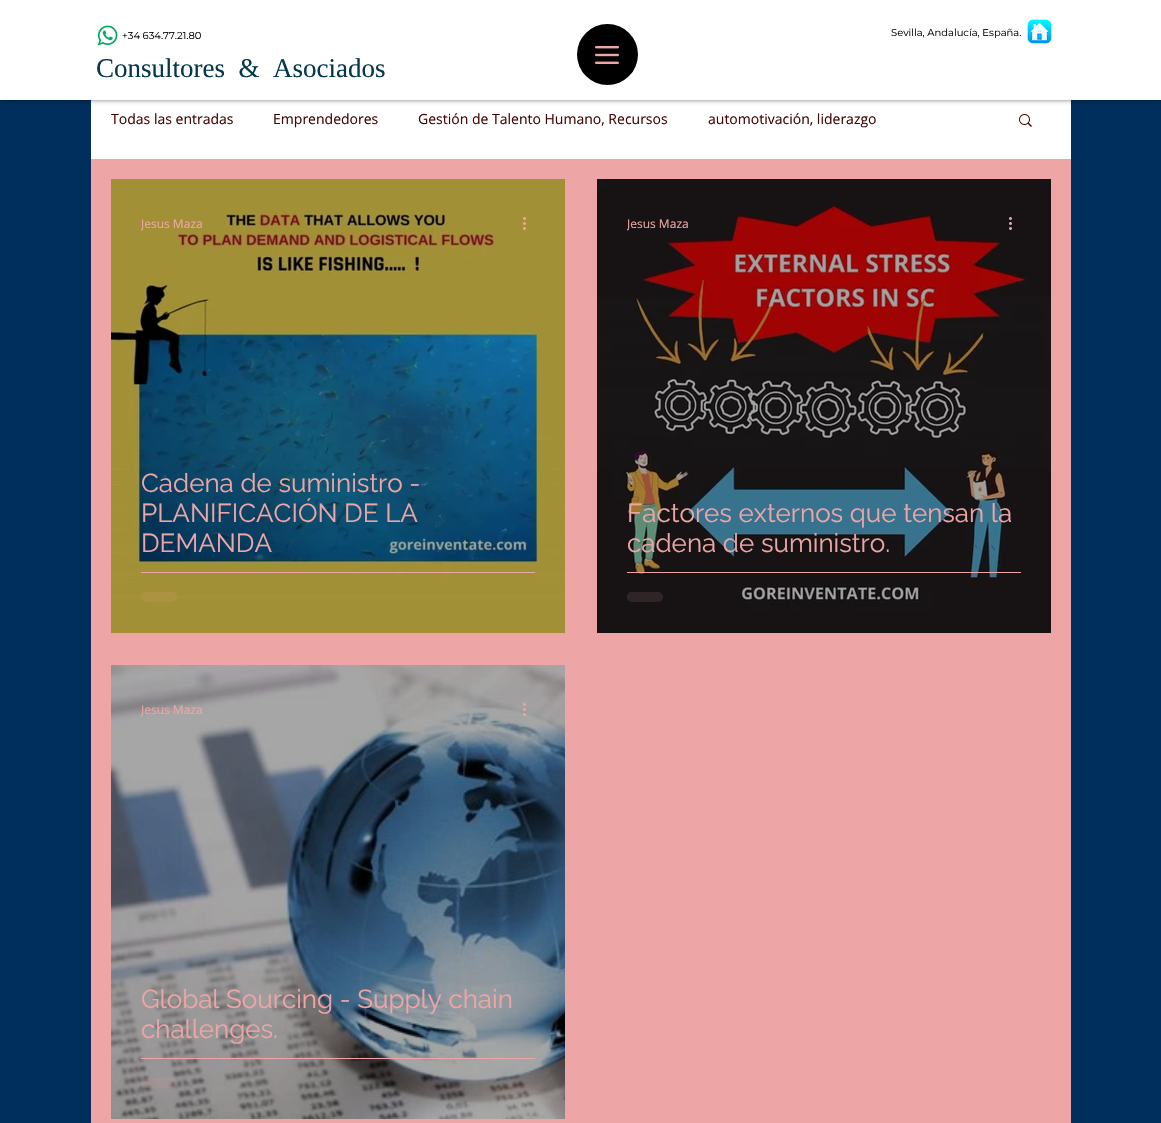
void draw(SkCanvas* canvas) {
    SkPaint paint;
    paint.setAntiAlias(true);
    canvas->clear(0xFF002E5D);
    paint.setColor(0xFFFFFFFF);
    canvas->drawRect(SkRect::MakeXYWH(91, 100, 980, 59), paint);
    paint.setColor(0x80000000);
    paint.setMaskFilter(SkMaskFilter::MakeBlur(kNormal_SkBlurStyle, 2.5f));
    canvas->drawRect(SkRect::MakeXYWH(0, 0, 1161, 100), paint);
    paint.setMaskFilter(nullptr);
    paint.setColor(0xFFFFFFFF);
    canvas->drawRect(SkRect::MakeXYWH(0, 0, 1161, 100), paint);
    canvas->drawImageRect(SkImages::DeferredFromEncodedData(SkData::MakeFromFileName("img1.png")), SkRect::MakeXYWH(97, 25, 21, 21), SkSamplingOptions());
    SkFont font1(fontMgr->matchFamilyStyle("Montserrat", SkFontStyle::Normal()), 10);
    font1.setSubpixel(true);
    paint.setColor(0xFF000000);
    canvas->drawString("+34 634.77.21.80", 122, 39, font1, paint);
    canvas->drawCircle(607.5f, 54.5f, 30.5f, paint);
    canvas->drawImageRect(SkImages::DeferredFromEncodedData(SkData::MakeFromFileName("img2.png")), SkRect::MakeXYWH(595, 46, 24, 18), SkSamplingOptions());
    canvas->drawString("Sevilla, Andalucía, España.", 891, 36, font1, paint);
    canvas->drawImageRect(SkImages::DeferredFromEncodedData(SkData::MakeFromFileName("img3.png")), SkRect::MakeXYWH(1027, 19, 25, 25), SkSamplingOptions());
    SkFont font2(fontMgr->matchFamilyStyle("Liberation Serif", SkFontStyle::Normal()), 27);
    font2.setSubpixel(true);
    paint.setColor(0xFF04384A);
    canvas->drawString("Consultores  &  Asociados", 96, 77, font2, paint);
    paint.setColor(0xFFEDA5A6);
    canvas->drawRect(SkRect::MakeXYWH(91, 159, 980, 964), paint);
    SkFont font3(fontMgr->matchFamilyStyle("Open Sans", SkFontStyle::Normal()), 14);
    font3.setSubpixel(true);
    paint.setColor(0xFF440506);
    canvas->drawString("Todas las entradas", 111, 124, font3, paint);
    canvas->drawString("Emprendedores", 273, 124, font3, paint);
    canvas->drawString("Gestión de Talento Humano, Recursos", 418, 124, font3, paint);
    canvas->drawString("automotivación, liderazgo", 708, 124, font3, paint);
    canvas->drawImageRect(SkImages::DeferredFromEncodedData(SkData::MakeFromFileName("img4.png")), SkRect::MakeXYWH(1019, 114, 13, 13), SkSamplingOptions());
    canvas->drawImageRect(SkImages::DeferredFromEncodedData(SkData::MakeFromFileName("img5.png")), SkRect::MakeXYWH(111, 179, 454, 454), SkSamplingOptions());
    canvas->save();
    canvas->clipRect(SkRect::MakeXYWH(141, 215, 61, 16));
    SkFont font4(fontMgr->matchFamilyStyle("Open Sans", SkFontStyle::Normal()), 12);
    font4.setSubpixel(true);
    paint.setColor(0xFFEDA5A6);
    canvas->drawString("Jesus Maza", 141, 228, font4, paint);
    canvas->restore();
    canvas->drawImageRect(SkImages::DeferredFromEncodedData(SkData::MakeFromFileName("img6.png")), SkRect::MakeXYWH(523, 217, 3, 13), SkSamplingOptions());
    SkFont font5(fontMgr->matchFamilyStyle("Raleway", SkFontStyle::Normal()), 26);
    font5.setSubpixel(true);
    canvas->drawString("Cadena de suministro -", 141, 492, font5, paint);
    canvas->drawString("PLANIFICACIÓN DE LA", 141, 522, font5, paint);
    canvas->drawString("DEMANDA", 141, 552, font5, paint);
    canvas->drawRect(SkRect::MakeXYWH(141, 572, 394, 1), paint);
    paint.setColor(0xFFAC9344);
    canvas->drawRoundRect(SkRect::MakeXYWH(141, 592, 36, 10), 5, 5, paint);
    canvas->drawImageRect(SkImages::DeferredFromEncodedData(SkData::MakeFromFileName("img7.png")), SkRect::MakeXYWH(597, 179, 454, 454), SkSamplingOptions());
    canvas->save();
    canvas->clipRect(SkRect::MakeXYWH(627, 215, 61, 16));
    paint.setColor(0xFFEDA5A6);
    canvas->drawString("Jesus Maza", 627, 228, font4, paint);
    canvas->restore();
    canvas->drawImageRect(SkImages::DeferredFromEncodedData(SkData::MakeFromFileName("img8.png")), SkRect::MakeXYWH(1009, 217, 3, 13), SkSamplingOptions());
    canvas->drawString("Factores externos que tensan la", 627, 522, font5, paint);
    canvas->drawString("cadena de suministro.", 627, 552, font5, paint);
    canvas->drawRect(SkRect::MakeXYWH(627, 572, 394, 1), paint);
    paint.setColor(0xFF302526);
    canvas->drawRoundRect(SkRect::MakeXYWH(627, 592, 36, 10), 5, 5, paint);
    canvas->drawImageRect(SkImages::DeferredFromEncodedData(SkData::MakeFromFileName("img9.png")), SkRect::MakeXYWH(111, 665, 454, 454), SkSamplingOptions());
    canvas->save();
    canvas->clipRect(SkRect::MakeXYWH(141, 701, 61, 16));
    paint.setColor(0xFFEDA5A6);
    canvas->drawString("Jesus Maza", 141, 714, font4, paint);
    canvas->restore();
    canvas->drawImageRect(SkImages::DeferredFromEncodedData(SkData::MakeFromFileName("img10.png")), SkRect::MakeXYWH(523, 703, 3, 13), SkSamplingOptions());
    canvas->drawString("Global Sourcing - Supply chain", 141, 1008, font5, paint);
    canvas->drawString("challenges.", 141, 1038, font5, paint);
    canvas->drawRect(SkRect::MakeXYWH(141, 1058, 394, 1), paint);
    paint.setColor(0x1FEDA5A6);
    canvas->drawRoundRect(SkRect::MakeXYWH(141, 1078, 36, 10), 5, 5, paint);
}
